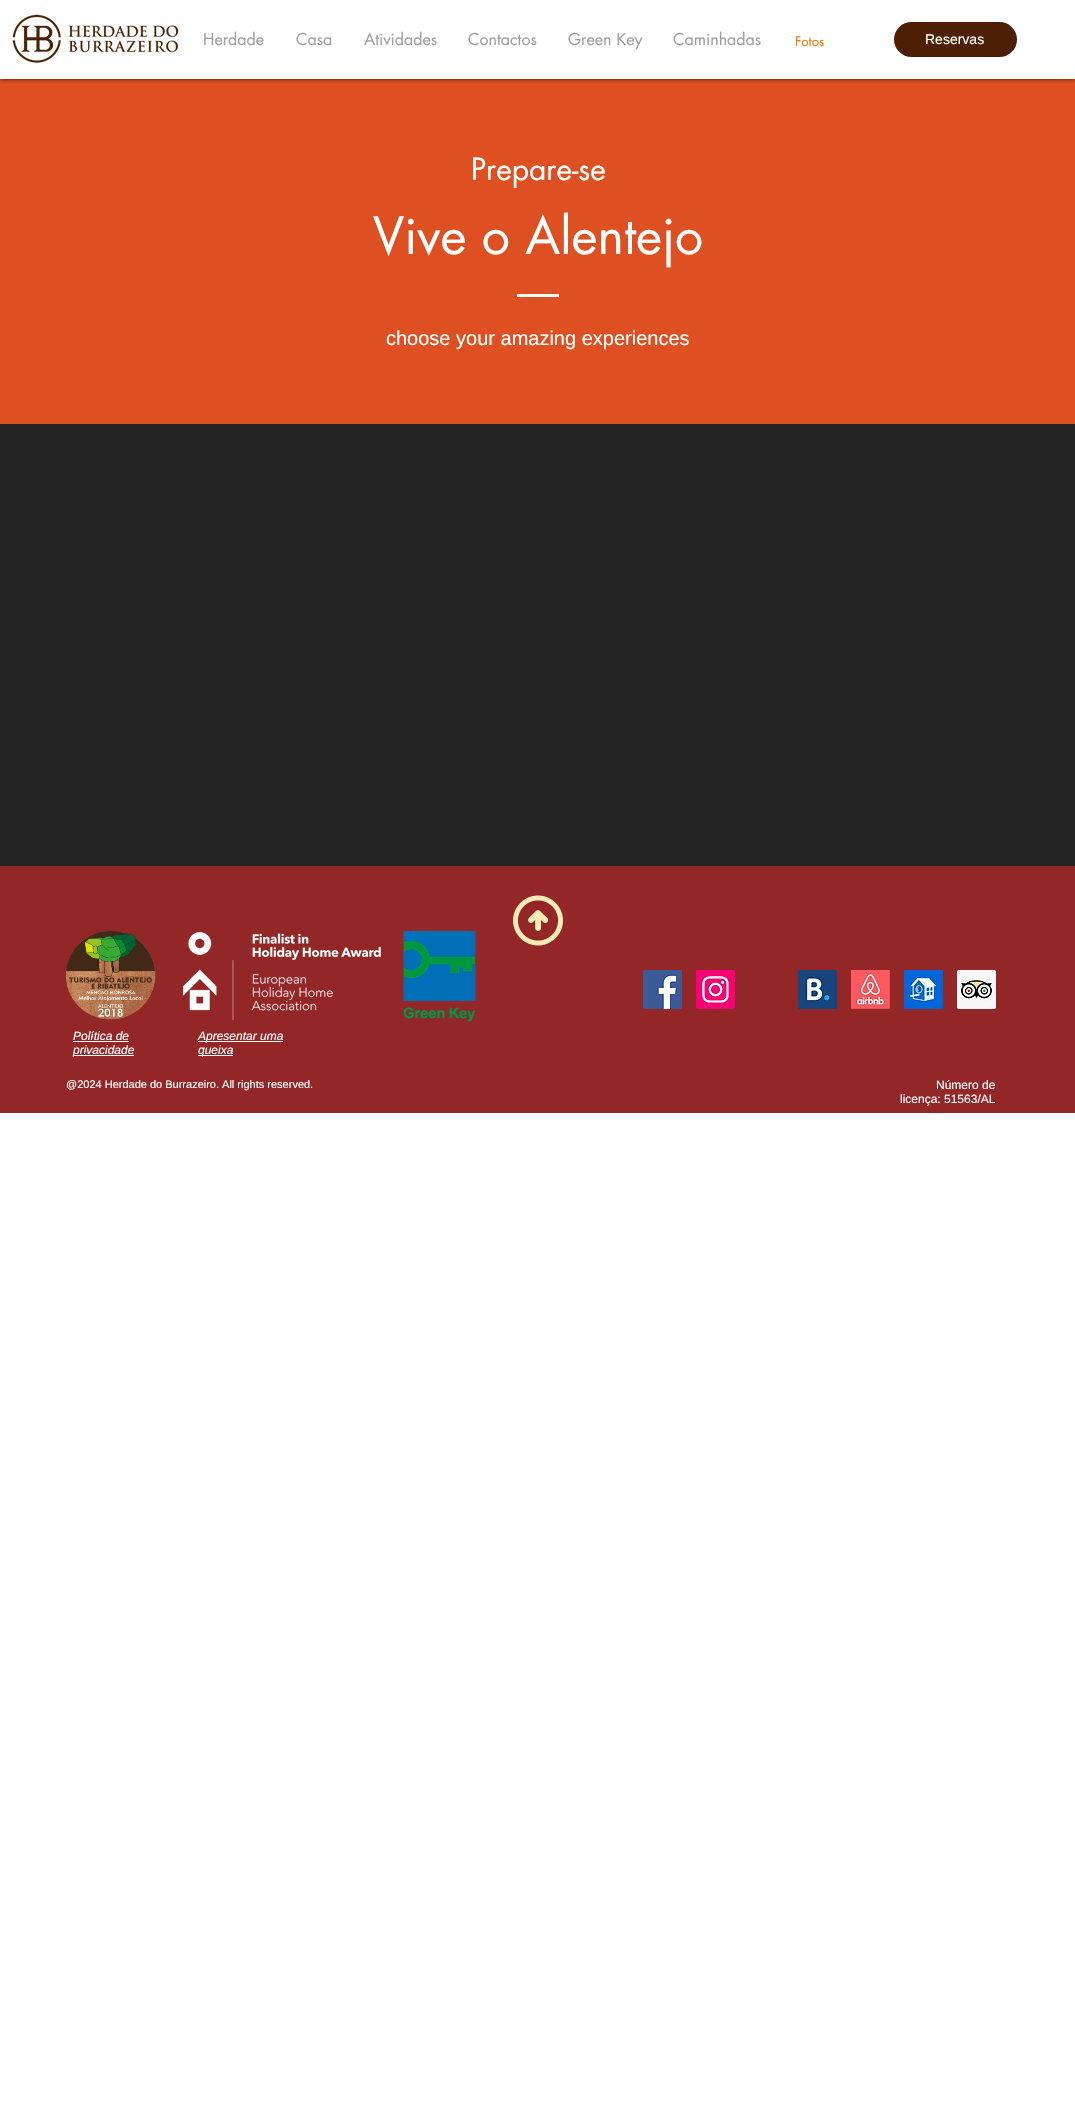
void draw(SkCanvas* canvas) {
    SkPaint paint;
    paint.setAntiAlias(true);
    canvas->clear(0xFFFFFFFF);
    paint.setColor(0xFFDE5021);
    canvas->drawRect(SkRect::MakeXYWH(0, 79, 1075, 345), paint);
    canvas->save();
    canvas->clipRect(SkRect::MakeXYWH(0, 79, 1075, 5));
    paint.setColor(0xB3000000);
    paint.setMaskFilter(SkMaskFilter::MakeBlur(kNormal_SkBlurStyle, 2.5f));
    canvas->drawRect(SkRect::MakeXYWH(0, 0, 1075, 79), paint);
    paint.setMaskFilter(nullptr);
    canvas->restore();
    canvas->drawImageRect(SkImages::DeferredFromEncodedData(SkData::MakeFromFileName("img1.png")), SkRect::MakeXYWH(12, 14, 167, 49), SkSamplingOptions());
    SkFont font1(fontMgr->matchFamilyStyle("futura", SkFontStyle::Normal()), 16);
    font1.setSubpixel(true);
    paint.setColor(0xFFA0A09F);
    canvas->drawString("Herdade", 203, 45, font1, paint);
    canvas->drawString("Casa", 296, 45, font1, paint);
    canvas->drawString("Atividades", 364, 45, font1, paint);
    canvas->drawString("Contactos", 468, 45, font1, paint);
    canvas->drawString("Green Key", 568, 45, font1, paint);
    canvas->drawString("Caminhadas", 673, 45, font1, paint);
    SkFont font2(fontMgr->matchFamilyStyle("futura", SkFontStyle::Normal()), 13);
    font2.setSubpixel(true);
    paint.setColor(0xFFFF7300);
    canvas->drawString("Fotos", 795, 46, font2, paint);
    paint.setColor(0xFF4D2003);
    canvas->drawRoundRect(SkRect::MakeXYWH(894, 22, 123, 35), 17.5f, 17.5f, paint);
    SkFont font3(fontMgr->matchFamilyStyle("Liberation Sans", SkFontStyle::Normal()), 14);
    font3.setSubpixel(true);
    paint.setColor(0xFFFFFFFF);
    canvas->drawString("Reservas", 925, 44, font3, paint);
    SkFont font4(fontMgr->matchFamilyStyle("futura", SkFontStyle::Normal()), 30);
    font4.setSubpixel(true);
    canvas->drawString("Prepare-se", 471, 180, font4, paint);
    SkFont font5(fontMgr->matchFamilyStyle("futura", SkFontStyle::Normal()), 50);
    font5.setSubpixel(true);
    canvas->drawString("Vive o Alentejo", 373, 254, font5, paint);
    canvas->drawRect(SkRect::MakeXYWH(517, 294, 42, 3), paint);
    SkFont font6(fontMgr->matchFamilyStyle("Liberation Sans", SkFontStyle::Normal()), 20);
    font6.setSubpixel(true);
    canvas->drawString("choose your amazing experiences", 386, 345, font6, paint);
    paint.setColor(0xFF242323);
    canvas->drawRect(SkRect::MakeXYWH(0, 424, 1075, 442), paint);
    paint.setColor(0xFF932626);
    canvas->drawRect(SkRect::MakeXYWH(0, 866, 1075, 247), paint);
    canvas->drawImageRect(SkImages::DeferredFromEncodedData(SkData::MakeFromFileName("img2.png")), SkRect::MakeXYWH(513, 895, 50, 51), SkSamplingOptions());
    canvas->drawImageRect(SkImages::DeferredFromEncodedData(SkData::MakeFromFileName("img3.png")), SkRect::MakeXYWH(66, 931, 90, 89), SkSamplingOptions());
    canvas->drawImageRect(SkImages::DeferredFromEncodedData(SkData::MakeFromFileName("img4.png")), SkRect::MakeXYWH(182, 932, 199, 88), SkSamplingOptions());
    canvas->drawImageRect(SkImages::DeferredFromEncodedData(SkData::MakeFromFileName("img5.png")), SkRect::MakeXYWH(403, 931, 73, 90), SkSamplingOptions());
    canvas->drawImageRect(SkImages::DeferredFromEncodedData(SkData::MakeFromFileName("img6.png")), SkRect::MakeXYWH(643, 970, 39, 39), SkSamplingOptions());
    canvas->drawImageRect(SkImages::DeferredFromEncodedData(SkData::MakeFromFileName("img7.png")), SkRect::MakeXYWH(696, 970, 39, 39), SkSamplingOptions());
    canvas->drawImageRect(SkImages::DeferredFromEncodedData(SkData::MakeFromFileName("img8.png")), SkRect::MakeXYWH(798, 970, 39, 39), SkSamplingOptions());
    canvas->drawImageRect(SkImages::DeferredFromEncodedData(SkData::MakeFromFileName("img9.png")), SkRect::MakeXYWH(851, 970, 39, 39), SkSamplingOptions());
    canvas->drawImageRect(SkImages::DeferredFromEncodedData(SkData::MakeFromFileName("img10.png")), SkRect::MakeXYWH(904, 970, 39, 39), SkSamplingOptions());
    canvas->drawImageRect(SkImages::DeferredFromEncodedData(SkData::MakeFromFileName("img11.png")), SkRect::MakeXYWH(957, 970, 39, 39), SkSamplingOptions());
    SkFont font7(fontMgr->matchFamilyStyle("Liberation Sans", SkFontStyle::Italic()), 12);
    font7.setSubpixel(true);
    paint.setColor(0xFFFFFFFF);
    canvas->drawString("Política de", 73, 1040, font7, paint);
    canvas->drawRect(SkRect::MakeXYWH(73, 1041, 56, 1), paint);
    canvas->drawRect(SkRect::MakeXYWH(73, 1055, 61, 1), paint);
    canvas->drawString("privacidade", 73, 1054, font7, paint);
    canvas->drawRect(SkRect::MakeXYWH(198, 1041, 85, 1), paint);
    canvas->drawString("Apresentar uma", 198, 1040, font7, paint);
    canvas->drawRect(SkRect::MakeXYWH(198, 1055, 35, 1), paint);
    canvas->drawString("queixa", 198, 1054, font7, paint);
    SkFont font8(fontMgr->matchFamilyStyle("Liberation Sans", SkFontStyle::Normal()), 11);
    font8.setSubpixel(true);
    canvas->drawString("@2024 Herdade do Burrazeiro. All rights reserved.", 66, 1088, font8, paint);
    SkFont font9(fontMgr->matchFamilyStyle("Liberation Sans", SkFontStyle::Normal()), 12);
    font9.setSubpixel(true);
    canvas->drawString("Número de", 936, 1089, font9, paint);
    canvas->drawString("licença: 51563/AL", 900, 1103, font9, paint);
}
